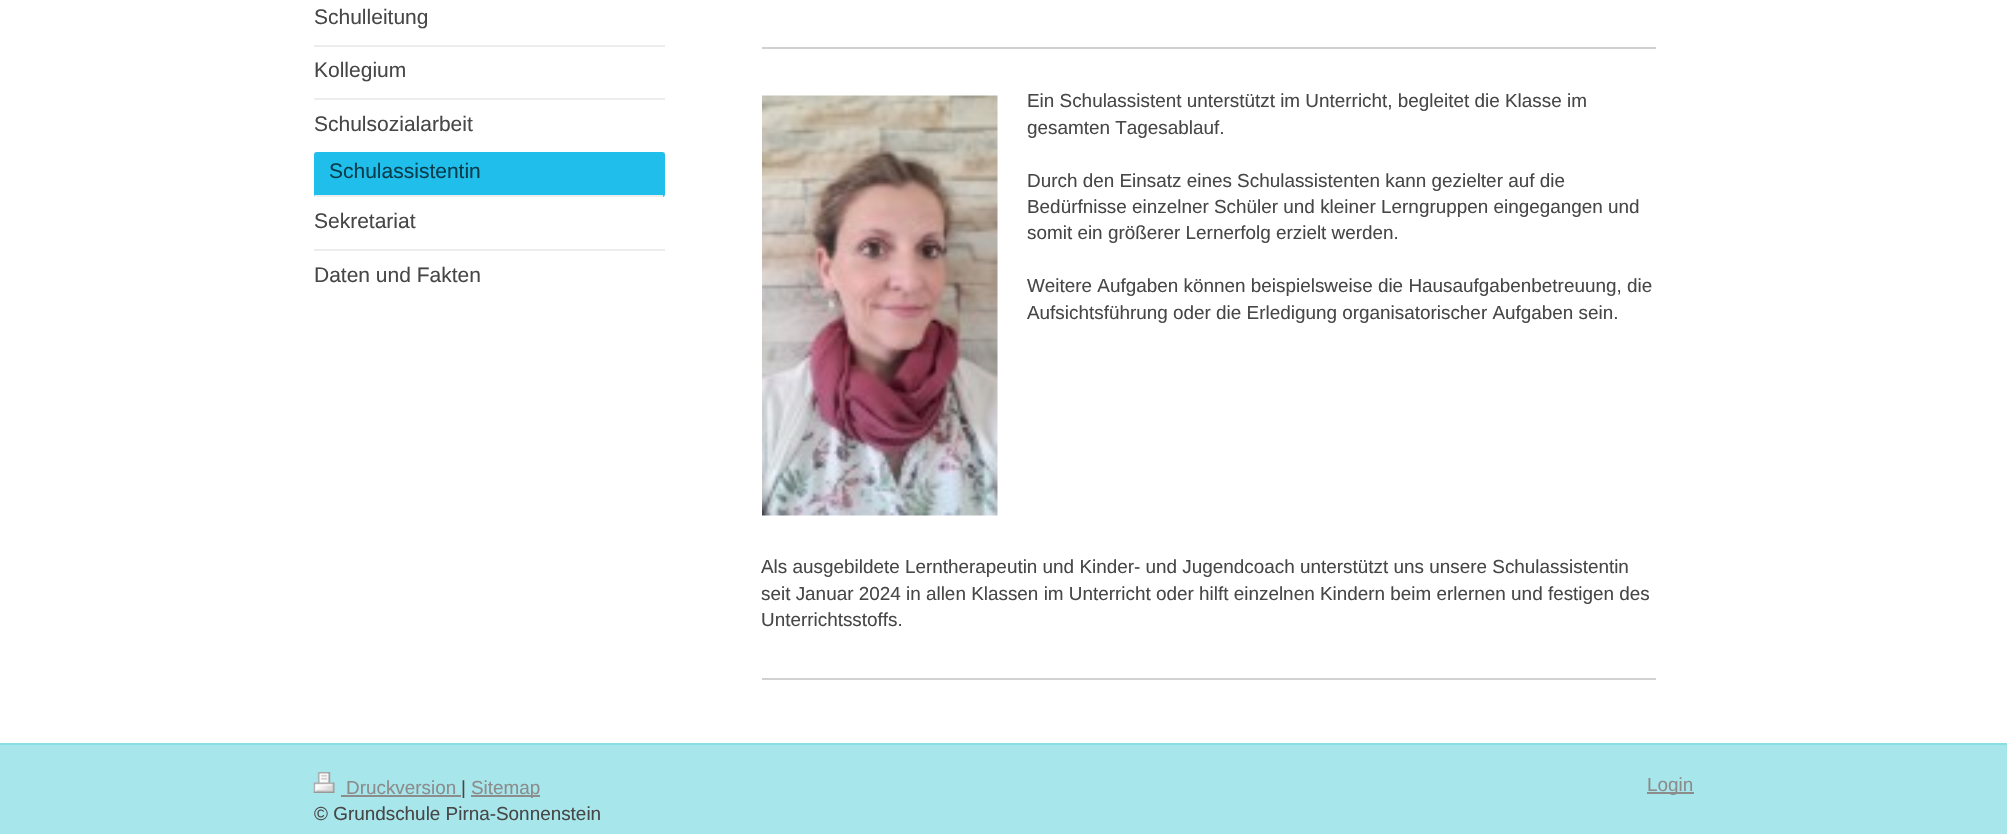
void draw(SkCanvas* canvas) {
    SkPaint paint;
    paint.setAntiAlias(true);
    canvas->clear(0xFFFFFFFF);
    paint.setColor(0xFFEDEDED);
    canvas->drawRect(SkRect::MakeXYWH(314, 45, 351, 2), paint);
    SkFont font1(fontMgr->matchFamilyStyle("Liberation Sans", SkFontStyle::Normal()), 21);
    font1.setSubpixel(true);
    paint.setColor(0xFF474747);
    canvas->drawString("Schulleitung", 314, 24, font1, paint);
    paint.setColor(0xFFEDEDED);
    canvas->drawRect(SkRect::MakeXYWH(314, 98, 351, 2), paint);
    paint.setColor(0xFF474747);
    canvas->drawString("Kollegium", 314, 77, font1, paint);
    paint.setColor(0xFFEDEDED);
    canvas->drawRect(SkRect::MakeXYWH(314, 152, 351, 2), paint);
    paint.setColor(0xFF474747);
    canvas->drawString("Schulsozialarbeit", 314, 131, font1, paint);
    paint.setColor(0xFF20BEEB);
    canvas->drawRoundRect(SkRect::MakeXYWH(314, 152, 351, 45), 3, 3, paint);
    paint.setColor(0xFFEDEDED);
    canvas->drawRect(SkRect::MakeXYWH(315, 195, 348, 2), paint);
    paint.setColor(0xFF083D4C);
    canvas->drawString("Schulassistentin", 329, 178, font1, paint);
    paint.setColor(0xFFEDEDED);
    canvas->drawRect(SkRect::MakeXYWH(314, 249, 351, 2), paint);
    paint.setColor(0xFF474747);
    canvas->drawString("Sekretariat", 314, 228, font1, paint);
    canvas->drawString("Daten und Fakten", 314, 282, font1, paint);
    paint.setColor(0xFFD1D1D1);
    canvas->drawRect(SkRect::MakeXYWH(762, 47, 894, 2), paint);
    canvas->drawImageRect(SkImages::DeferredFromEncodedData(SkData::MakeFromFileName("img1.png")), SkRect::MakeXYWH(762, 95, 236, 421), SkSamplingOptions());
    SkFont font2(fontMgr->matchFamilyStyle("Liberation Sans", SkFontStyle::Normal()), 18.9f);
    font2.setSubpixel(true);
    paint.setColor(0xFF474747);
    canvas->drawString("Ein Schulassistent unterstützt im Unterricht, begleitet die Klasse im", 1027, 107, font2, paint);
    canvas->drawString("gesamten Tagesablauf.", 1027, 134, font2, paint);
    canvas->drawString("Durch den Einsatz eines Schulassistenten kann gezielter auf die", 1027, 187, font2, paint);
    canvas->drawString("Bedürfnisse einzelner Schüler und kleiner Lerngruppen eingegangen und", 1027, 213, font2, paint);
    canvas->drawString("somit ein größerer Lernerfolg erzielt werden.", 1027, 239, font2, paint);
    canvas->drawString("Weitere Aufgaben können beispielsweise die Hausaufgabenbetreuung, die", 1027, 292, font2, paint);
    canvas->drawString("Aufsichtsführung oder die Erledigung organisatorischer Aufgaben sein.", 1027, 319, font2, paint);
    canvas->drawString("Als ausgebildete Lerntherapeutin und Kinder- und Jugendcoach unterstützt uns unsere Schulassistentin", 761, 573, font2, paint);
    canvas->drawString("seit Januar 2024 in allen Klassen im Unterricht oder hilft einzelnen Kindern beim erlernen und festigen des", 761, 600, font2, paint);
    canvas->drawString("Unterrichtsstoffs.", 761, 626, font2, paint);
    paint.setColor(0xFFD1D1D1);
    canvas->drawRect(SkRect::MakeXYWH(762, 678, 894, 2), paint);
    paint.setColor(0xFFA7E6EB);
    canvas->drawRect(SkRect::MakeXYWH(0, 745, 2007, 89), paint);
    paint.setColor(0xFF89DEE4);
    canvas->drawRect(SkRect::MakeXYWH(0, 743, 2007, 2), paint);
    canvas->drawImageRect(SkImages::DeferredFromEncodedData(SkData::MakeFromFileName("img2.png")), SkRect::MakeXYWH(313, 772, 22, 21), SkSamplingOptions());
    paint.setColor(0xFF8C8C8C);
    canvas->drawString("Druckversion", 346, 794, font2, paint);
    canvas->drawRect(SkRect::MakeXYWH(341, 795, 120, 2), paint);
    paint.setColor(0xFF474747);
    canvas->drawString("|", 461, 794, font2, paint);
    paint.setColor(0xFF8C8C8C);
    canvas->drawRect(SkRect::MakeXYWH(471, 795, 69, 2), paint);
    canvas->drawString("Sitemap", 471, 794, font2, paint);
    canvas->save();
    canvas->clipRect(SkRect::MakeXYWH(314, 773, 1380, 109));
    paint.setColor(0xFF474747);
    canvas->drawString("© Grundschule Pirna-Sonnenstein", 314, 820, font2, paint);
    canvas->restore();
    paint.setColor(0xFF8C8C8C);
    canvas->drawRect(SkRect::MakeXYWH(1647, 792, 47, 2), paint);
    canvas->drawString("Login", 1647, 791, font2, paint);
}
